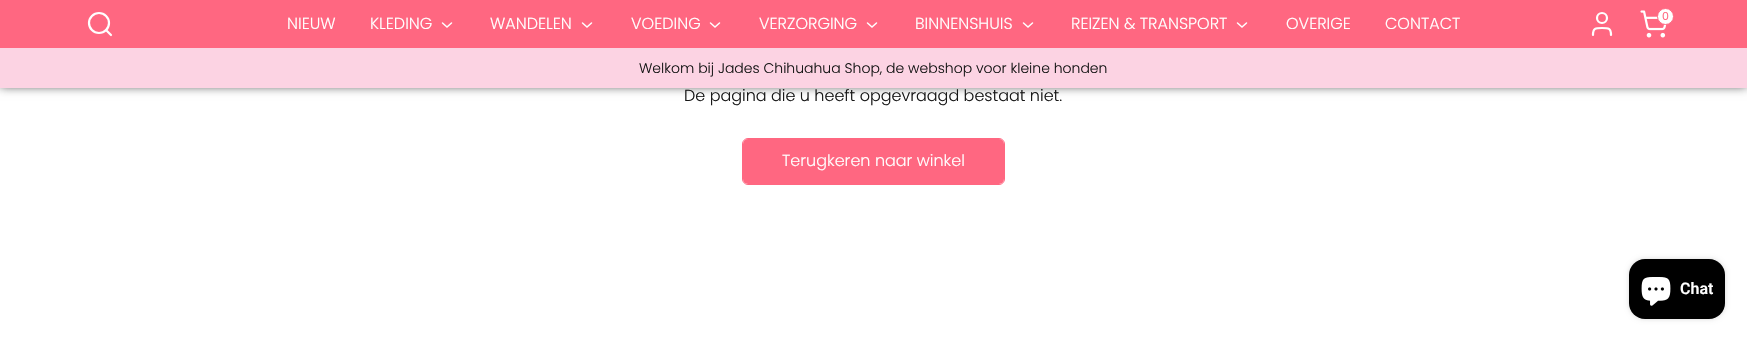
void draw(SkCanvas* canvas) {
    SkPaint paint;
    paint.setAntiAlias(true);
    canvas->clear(0xFFFFFFFF);
    paint.setColor(0xBF000000);
    paint.setMaskFilter(SkMaskFilter::MakeBlur(kNormal_SkBlurStyle, 5));
    canvas->drawRect(SkRect::MakeXYWH(0, -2, 1747, 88), paint);
    paint.setMaskFilter(nullptr);
    paint.setColor(0xFFFF6781);
    canvas->drawRect(SkRect::MakeXYWH(0, 0, 1747, 48), paint);
    paint.setStyle(SkPaint::kStroke_Style);
    paint.setStrokeWidth(2.2f);
    paint.setColor(0xFFFFFFFF);
    canvas->drawCircle(99, 23, 10, paint);
    paint.setStrokeCap(SkPaint::kRound_Cap);
    paint.setStrokeJoin(SkPaint::kRound_Join);
    canvas->drawPath(SkPathBuilder().moveTo(111, 35).lineTo(106, 30).detach(), paint);
    canvas->drawPath(SkPathBuilder().moveTo(1611, 35).cubicTo(1611, 28, 1608.5f, 28, 1602, 28).cubicTo(1595.5f, 28, 1593, 28, 1593, 35).detach(), paint);
    paint.setStrokeCap(SkPaint::kButt_Cap);
    paint.setStrokeJoin(SkPaint::kMiter_Join);
    canvas->drawCircle(1602, 18, 5, paint);
    canvas->drawImageRect(SkImages::DeferredFromEncodedData(SkData::MakeFromFileName("img1.png")), SkRect::MakeXYWH(1640, 10, 27, 28), SkSamplingOptions());
    paint.setStyle(SkPaint::kFill_Style);
    canvas->drawCircle(1665.5f, 16.5f, 8, paint);
    paint.setStyle(SkPaint::kStroke_Style);
    paint.setStrokeWidth(1);
    paint.setColor(0xFFFF6781);
    canvas->drawCircle(1665.5f, 16.5f, 8, paint);
    SkFont font1(fontMgr->matchFamilyStyle("Poppins", SkFontStyle::Normal()), 11);
    font1.setSubpixel(true);
    paint.setStyle(SkPaint::kFill_Style);
    canvas->drawString("0", 1662, 20, font1, paint);
    SkFont font2(fontMgr->matchFamilyStyle("Poppins", SkFontStyle(300, SkFontStyle::kNormal_Width, SkFontStyle::kUpright_Slant)), 16);
    font2.setSubpixel(true);
    paint.setColor(0xFFFFFFFF);
    canvas->drawString("WANDELEN", 490, 29, font2, paint);
    paint.setStyle(SkPaint::kStroke_Style);
    paint.setStrokeWidth(2.2f);
    paint.setStrokeCap(SkPaint::kRound_Cap);
    paint.setStrokeJoin(SkPaint::kRound_Join);
    paint.setColor(0xFFFF6781);
    canvas->drawPath(SkPathBuilder().moveTo(554, 35).lineTo(549, 30).detach(), paint);
    paint.setStyle(SkPaint::kFill_Style);
    paint.setColor(0xFFFFFFFF);
    canvas->drawString("NIEUW", 287, 29, font2, paint);
    canvas->drawString("KLEDING", 370, 29, font2, paint);
    paint.setStyle(SkPaint::kStroke_Style);
    paint.setStrokeWidth(1.5f);
    paint.setStrokeJoin(SkPaint::kMiter_Join);
    canvas->drawPath(SkPathBuilder().moveTo(442.5f, 23).lineTo(447, 27).lineTo(451.5f, 23).detach(), paint);
    canvas->drawPath(SkPathBuilder().moveTo(582.5f, 23).lineTo(587, 27).lineTo(591.5f, 23).detach(), paint);
    paint.setStyle(SkPaint::kFill_Style);
    canvas->drawString("VOEDING", 631, 29, font2, paint);
    paint.setStyle(SkPaint::kStroke_Style);
    canvas->drawPath(SkPathBuilder().moveTo(710.5f, 23).lineTo(715, 27).lineTo(719.5f, 23).detach(), paint);
    paint.setStyle(SkPaint::kFill_Style);
    canvas->drawString("VERZORGING", 759, 29, font2, paint);
    paint.setStyle(SkPaint::kStroke_Style);
    canvas->drawPath(SkPathBuilder().moveTo(867.5f, 23).lineTo(872, 27).lineTo(876.5f, 23).detach(), paint);
    paint.setStyle(SkPaint::kFill_Style);
    canvas->drawString("BINNENSHUIS", 915, 29, font2, paint);
    paint.setStyle(SkPaint::kStroke_Style);
    canvas->drawPath(SkPathBuilder().moveTo(1023.5f, 23).lineTo(1028, 27).lineTo(1032.5f, 23).detach(), paint);
    paint.setStyle(SkPaint::kFill_Style);
    canvas->drawString("REIZEN & TRANSPORT", 1071, 29, font2, paint);
    paint.setStyle(SkPaint::kStroke_Style);
    canvas->drawPath(SkPathBuilder().moveTo(1237.5f, 23).lineTo(1242, 27).lineTo(1246.5f, 23).detach(), paint);
    paint.setStyle(SkPaint::kFill_Style);
    canvas->drawString("OVERIGE", 1286, 29, font2, paint);
    canvas->drawString("CONTACT", 1385, 29, font2, paint);
    paint.setColor(0xFFFCD3E3);
    canvas->drawRect(SkRect::MakeXYWH(0, 48, 1747, 40), paint);
    SkFont font3(fontMgr->matchFamilyStyle("Poppins", SkFontStyle(300, SkFontStyle::kNormal_Width, SkFontStyle::kUpright_Slant)), 14);
    font3.setSubpixel(true);
    paint.setColor(0xFF171717);
    canvas->drawString("Welkom bij Jades Chihuahua Shop, de webshop voor kleine honden", 639, 73, font3, paint);
    canvas->drawString("De pagina die u heeft opgevraagd bestaat niet.", 684, 101, font2, paint);
    paint.setStyle(SkPaint::kStroke_Style);
    paint.setStrokeWidth(1);
    paint.setStrokeCap(SkPaint::kButt_Cap);
    paint.setColor(0xFFFF6781);
    canvas->drawRoundRect(SkRect::MakeXYWH(742.5f, 138.5f, 262, 46), 5.5f, 5.5f, paint);
    paint.setStyle(SkPaint::kFill_Style);
    canvas->drawRoundRect(SkRect::MakeXYWH(743, 139, 261, 45), 5, 5, paint);
    paint.setColor(0xFFFFFFFF);
    canvas->drawString("Terugkeren naar winkel", 782, 166, font2, paint);
    paint.setColor(0x26000000);
    paint.setMaskFilter(SkMaskFilter::MakeBlur(kNormal_SkBlurStyle, 2.5f));
    canvas->drawRoundRect(SkRect::MakeXYWH(1629, 259, 96, 60), 16, 16, paint);
    paint.setMaskFilter(nullptr);
    paint.setColor(0xFF000000);
    canvas->drawRoundRect(SkRect::MakeXYWH(1629, 259, 96, 60), 16, 16, paint);
    canvas->drawImageRect(SkImages::DeferredFromEncodedData(SkData::MakeFromFileName("img2.png")), SkRect::MakeXYWH(1641, 277, 30, 29), SkSamplingOptions());
    SkFont font4(fontMgr->matchFamilyStyle("Roboto", SkFontStyle(600, SkFontStyle::kNormal_Width, SkFontStyle::kUpright_Slant)), 16);
    font4.setSubpixel(true);
    paint.setColor(0xFFFFFFFF);
    canvas->drawString("Chat", 1680, 294, font4, paint);
}
